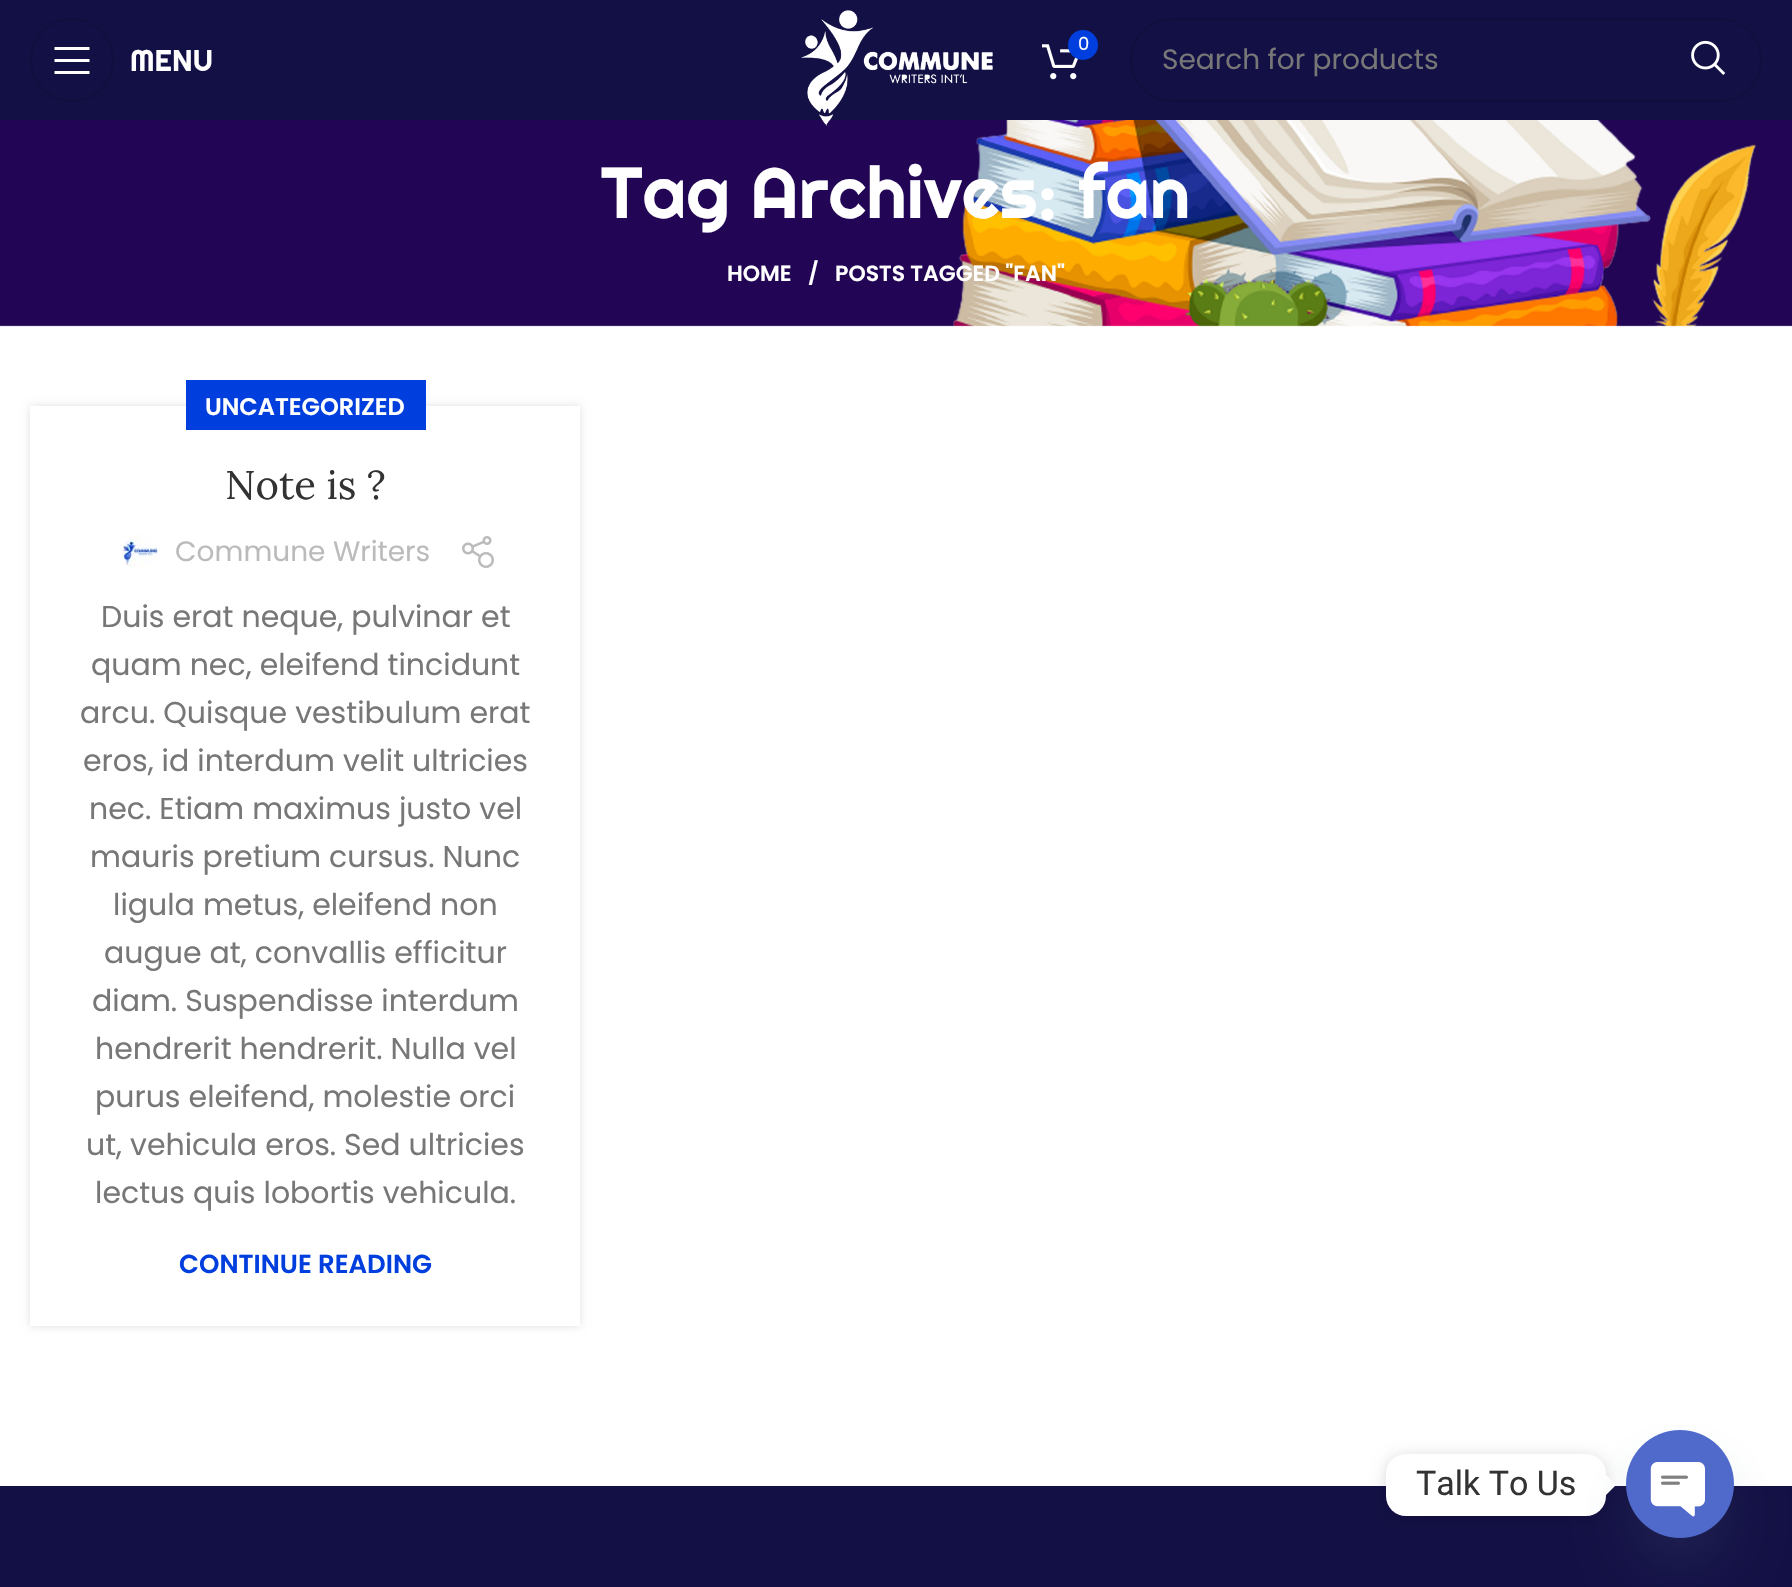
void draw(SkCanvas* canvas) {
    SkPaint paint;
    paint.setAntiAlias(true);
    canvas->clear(0xFFFFFFFF);
    paint.setColor(0xFF131045);
    canvas->drawRect(SkRect::MakeXYWH(0, 0, 1792, 120), paint);
    paint.setStyle(SkPaint::kStroke_Style);
    paint.setStrokeWidth(2);
    paint.setColor(0xFF110E3E);
    canvas->drawCircle(72, 60, 41, paint);
    paint.setStyle(SkPaint::kFill_Style);
    paint.setColor(0xFFFFFFFF);
    canvas->drawPath(SkPathBuilder().moveTo(54.5f, 50).lineTo(89.5f, 50).lineTo(89.5f, 47).lineTo(54.5f, 47).close().moveTo(54.5f, 62).lineTo(89.5f, 62).lineTo(89.5f, 59).lineTo(54.5f, 59).close().moveTo(54.5f, 74).lineTo(89.5f, 74).lineTo(89.5f, 71).lineTo(54.5f, 71).close().detach(), paint);
    SkFont font1(fontMgr->matchFamilyStyle("Righteous", SkFontStyle::Normal()), 30);
    font1.setSubpixel(true);
    canvas->drawString("MENU", 130, 71, font1, paint);
    canvas->drawImageRect(SkImages::DeferredFromEncodedData(SkData::MakeFromFileName("img4.png")), SkRect::MakeXYWH(0, 120, 1792, 207), SkSamplingOptions());
    canvas->drawImageRect(SkImages::DeferredFromEncodedData(SkData::MakeFromFileName("img1.png")), SkRect::MakeXYWH(801, 10, 192, 116), SkSamplingOptions());
    canvas->drawImageRect(SkImages::DeferredFromEncodedData(SkData::MakeFromFileName("img2.png")), SkRect::MakeXYWH(1042, 44, 36, 36), SkSamplingOptions());
    paint.setColor(0xFF003EDD);
    canvas->drawCircle(1083, 45, 15, paint);
    SkFont font2(fontMgr->matchFamilyStyle("Poppins", SkFontStyle::Normal()), 18);
    font2.setSubpixel(true);
    paint.setColor(0xFFFFFFFF);
    canvas->drawString("0", 1078, 50, font2, paint);
    paint.setStyle(SkPaint::kStroke_Style);
    paint.setColor(0xFF110E3E);
    canvas->drawRoundRect(SkRect::MakeXYWH(1131, 19, 630, 82), 41, 41, paint);
    SkFont font3(fontMgr->matchFamilyStyle("Poppins", SkFontStyle::Normal()), 28);
    font3.setSubpixel(true);
    paint.setStyle(SkPaint::kFill_Style);
    paint.setColor(0xFF777777);
    canvas->drawString("Search for products", 1162, 69, font3, paint);
    canvas->drawImageRect(SkImages::DeferredFromEncodedData(SkData::MakeFromFileName("img3.png")), SkRect::MakeXYWH(1691, 40, 35, 35), SkSamplingOptions());
    SkFont font4(fontMgr->matchFamilyStyle("Righteous", SkFontStyle::Normal()), 72);
    font4.setSubpixel(true);
    paint.setColor(0xFFFFFFFF);
    canvas->drawString("Tag Archives: fan", 601, 218, font4, paint);
    SkFont font5(fontMgr->matchFamilyStyle("Poppins", SkFontStyle(600, SkFontStyle::kNormal_Width, SkFontStyle::kUpright_Slant)), 22);
    font5.setSubpixel(true);
    canvas->drawString("HOME", 727, 281, font5, paint);
    canvas->drawString("/", 808, 281, font5, paint);
    canvas->drawString("POSTS TAGGED \"FAN\"", 835, 281, font5, paint);
    canvas->save();
    canvas->clipPath(SkPathBuilder(SkPathFillType::kEvenOdd).moveTo(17, 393).lineTo(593, 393).lineTo(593, 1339).lineTo(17, 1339).close().moveTo(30, 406).lineTo(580, 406).lineTo(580, 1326).lineTo(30, 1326).close().detach(), true);
    paint.setColor(0x1F000000);
    paint.setMaskFilter(SkMaskFilter::MakeBlur(kNormal_SkBlurStyle, 4));
    canvas->drawRect(SkRect::MakeXYWH(30, 406, 550, 920), paint);
    paint.setMaskFilter(nullptr);
    canvas->restore();
    paint.setColor(0xFF003EDD);
    canvas->drawRect(SkRect::MakeXYWH(186, 380, 240, 50), paint);
    SkFont font6(fontMgr->matchFamilyStyle("Poppins", SkFontStyle(600, SkFontStyle::kNormal_Width, SkFontStyle::kUpright_Slant)), 24);
    font6.setSubpixel(true);
    paint.setColor(0xFFFFFFFF);
    canvas->drawString("UNCATEGORIZED", 205, 415, font6, paint);
    SkFont font7(fontMgr->matchFamilyStyle("Lora", SkFontStyle::Normal()), 40);
    font7.setSubpixel(true);
    paint.setColor(0xFF333333);
    canvas->drawString("Note is ?", 225, 499, font7, paint);
    canvas->drawImageRect(SkImages::DeferredFromEncodedData(SkData::MakeFromFileName("img5.png")), SkRect::MakeXYWH(122, 534, 36, 35), SkSamplingOptions());
    paint.setColor(0xFFBBBBBB);
    canvas->drawString("Commune Writers", 175, 561, font3, paint);
    canvas->drawImageRect(SkImages::DeferredFromEncodedData(SkData::MakeFromFileName("img6.png")), SkRect::MakeXYWH(462, 536, 32, 32), SkSamplingOptions());
    SkFont font8(fontMgr->matchFamilyStyle("Poppins", SkFontStyle::Normal()), 30);
    font8.setSubpixel(true);
    paint.setColor(0xFF777777);
    canvas->drawString("Duis erat neque, pulvinar et", 101, 627, font8, paint);
    canvas->drawString("quam nec, eleifend tincidunt", 91, 675, font8, paint);
    canvas->drawString("arcu. Quisque vestibulum erat", 80, 723, font8, paint);
    canvas->drawString("eros, id interdum velit ultricies", 83, 771, font8, paint);
    canvas->drawString("nec. Etiam maximus justo vel", 89, 819, font8, paint);
    canvas->drawString("mauris pretium cursus. Nunc", 90, 867, font8, paint);
    canvas->drawString("ligula metus, eleifend non", 113, 915, font8, paint);
    canvas->drawString("augue at, convallis efficitur", 104, 963, font8, paint);
    canvas->drawString("diam. Suspendisse interdum", 92, 1011, font8, paint);
    canvas->drawString("hendrerit hendrerit. Nulla vel", 95, 1059, font8, paint);
    canvas->drawString("purus eleifend, molestie orci", 95, 1107, font8, paint);
    canvas->drawString("ut, vehicula eros. Sed ultricies", 86, 1155, font8, paint);
    canvas->drawString("lectus quis lobortis vehicula.", 95, 1203, font8, paint);
    SkFont font9(fontMgr->matchFamilyStyle("Poppins", SkFontStyle(600, SkFontStyle::kNormal_Width, SkFontStyle::kUpright_Slant)), 26);
    font9.setSubpixel(true);
    paint.setColor(0xFF003EDD);
    canvas->drawString("CONTINUE READING", 179, 1273, font9, paint);
    paint.setColor(0xFF131045);
    canvas->drawRect(SkRect::MakeXYWH(0, 1486, 1792, 101), paint);
    paint.setColor(0x26000000);
    paint.setMaskFilter(SkMaskFilter::MakeBlur(kNormal_SkBlurStyle, 7.5f));
    canvas->drawRoundRect(SkRect::MakeXYWH(1386, 1456, 220, 62), 20, 20, paint);
    paint.setMaskFilter(nullptr);
    paint.setColor(0xFFFFFFFF);
    canvas->drawRoundRect(SkRect::MakeXYWH(1386, 1454, 220, 62), 20, 20, paint);
    SkFont font10(fontMgr->matchFamilyStyle("Roboto", SkFontStyle::Normal()), 34);
    font10.setSubpixel(true);
    paint.setColor(0xFF333333);
    canvas->drawString("Talk To Us", 1416, 1495, font10, paint);
    paint.setColor(0xFFFFFFFF);
    canvas->drawPath(SkPathBuilder().moveTo(1606, 1495).lineTo(1606, 1475).lineTo(1616, 1485).close().detach(), paint);
    paint.setColor(0x2949687E);
    paint.setMaskFilter(SkMaskFilter::MakeBlur(kNormal_SkBlurStyle, 24));
    canvas->drawRoundRect(SkRect::MakeXYWH(1626, 1462, 108, 108), 54, 54, paint);
    paint.setMaskFilter(nullptr);
    canvas->drawImageRect(SkImages::DeferredFromEncodedData(SkData::MakeFromFileName("img7.png")), SkRect::MakeXYWH(1626, 1430, 108, 108), SkSamplingOptions());
}
